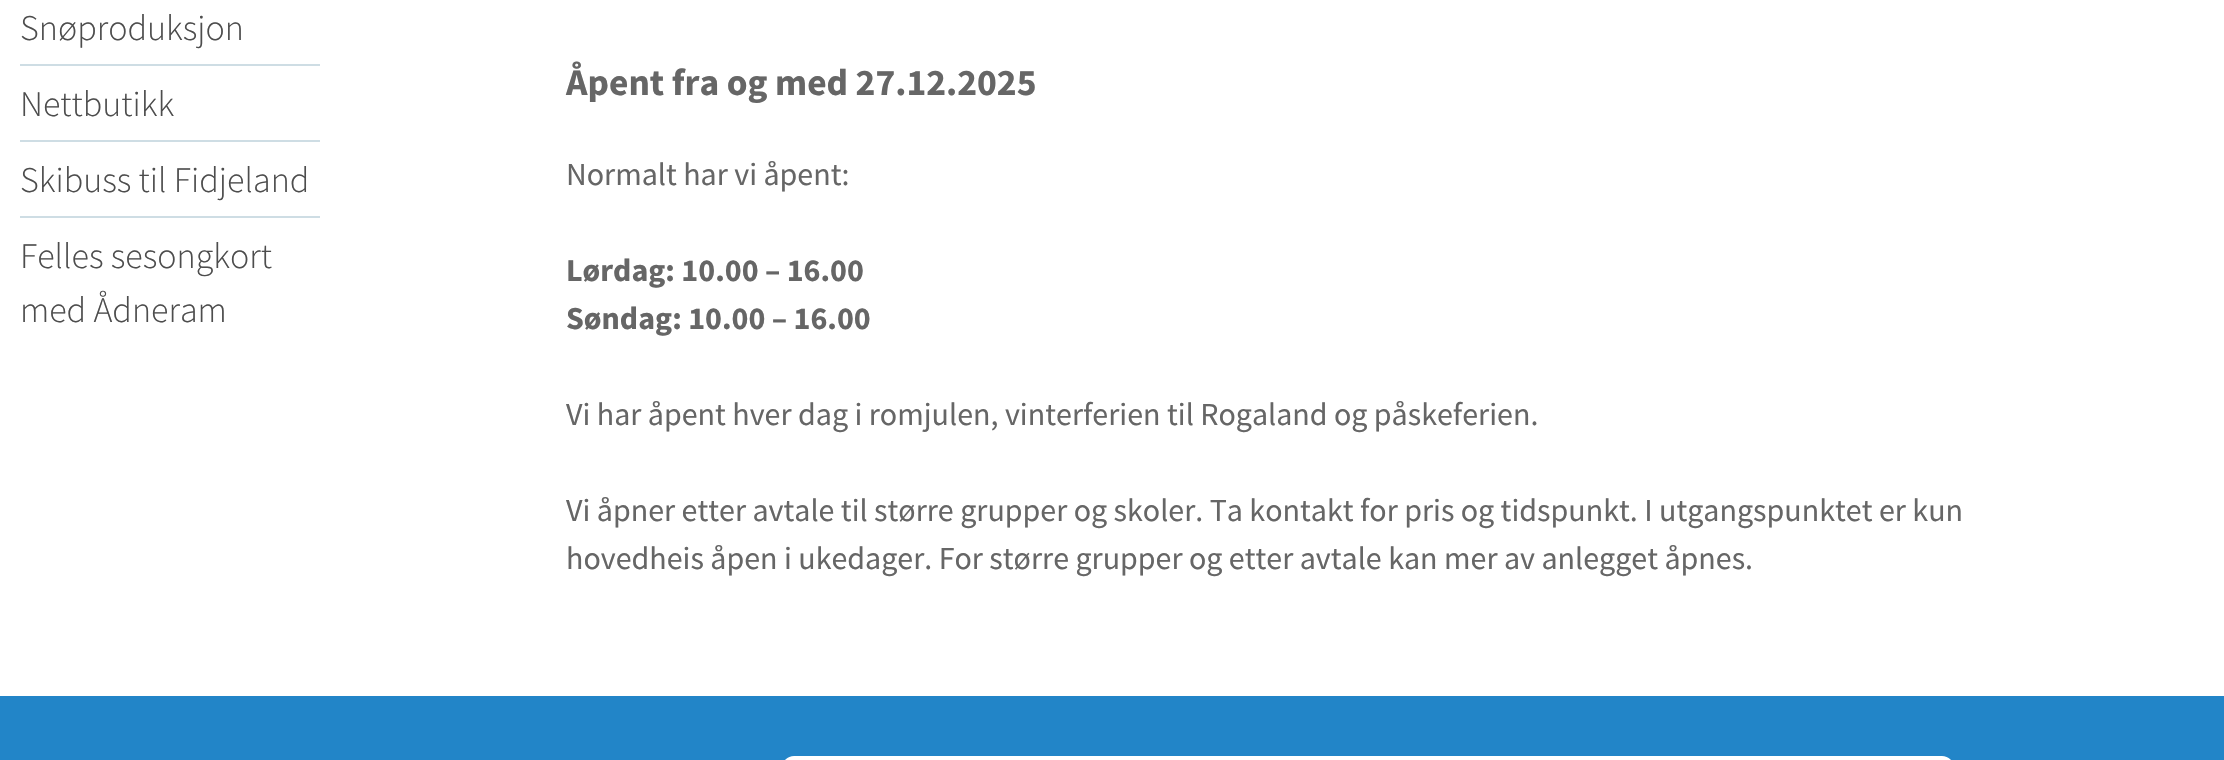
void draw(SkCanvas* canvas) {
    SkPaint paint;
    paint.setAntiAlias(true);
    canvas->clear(0xFFFFFFFF);
    paint.setColor(0xFFCEDDE4);
    canvas->drawRect(SkRect::MakeXYWH(20, 64, 300, 2), paint);
    SkFont font1(fontMgr->matchFamilyStyle("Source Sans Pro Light", SkFontStyle(300, SkFontStyle::kNormal_Width, SkFontStyle::kUpright_Slant)), 36);
    font1.setSubpixel(true);
    paint.setColor(0xFF4D4D4D);
    canvas->drawString("Snøproduksjon", 20, 40, font1, paint);
    paint.setColor(0xFFCEDDE4);
    canvas->drawRect(SkRect::MakeXYWH(20, 140, 300, 2), paint);
    paint.setColor(0xFF4D4D4D);
    canvas->drawString("Nettbutikk", 20, 116, font1, paint);
    paint.setColor(0xFFCEDDE4);
    canvas->drawRect(SkRect::MakeXYWH(20, 216, 300, 2), paint);
    paint.setColor(0xFF4D4D4D);
    canvas->drawString("Skibuss til Fidjeland", 20, 192, font1, paint);
    canvas->drawString("Felles sesongkort", 20, 268, font1, paint);
    canvas->drawString("med Ådneram", 20, 322, font1, paint);
    SkFont font2(fontMgr->matchFamilyStyle("Source Sans Pro", SkFontStyle::Bold()), 37.5f);
    font2.setSubpixel(true);
    paint.setColor(0xFF666666);
    canvas->drawString("Åpent fra og med 27.12.2025", 566, 95, font2, paint);
    SkFont font3(fontMgr->matchFamilyStyle("Source Sans Pro", SkFontStyle::Normal()), 32);
    font3.setSubpixel(true);
    canvas->drawString("Normalt har vi åpent:", 566, 185, font3, paint);
    SkFont font4(fontMgr->matchFamilyStyle("Source Sans Pro", SkFontStyle::Bold()), 32);
    font4.setSubpixel(true);
    canvas->drawString("Lørdag: 10.00 – 16.00", 566, 281, font4, paint);
    canvas->drawString("Søndag: 10.00 – 16.00", 566, 329, font4, paint);
    canvas->drawString("Vi har åpent hver dag i romjulen, vinterferien til Rogaland og påskeferien.", 566, 425, font3, paint);
    canvas->drawString("Vi åpner etter avtale til større grupper og skoler. Ta kontakt for pris og tidspunkt. I utgangspunktet er kun", 566, 521, font3, paint);
    canvas->drawString("hovedheis åpen i ukedager. For større grupper og etter avtale kan mer av anlegget åpnes.", 566, 569, font3, paint);
    paint.setColor(0xFF2285C8);
    canvas->drawRect(SkRect::MakeXYWH(0, 696, 2224, 64), paint);
    paint.setColor(0xFFFFFFFF);
    canvas->drawRoundRect(SkRect::MakeXYWH(782, 756, 1172, 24), 20, 20, paint);
}
